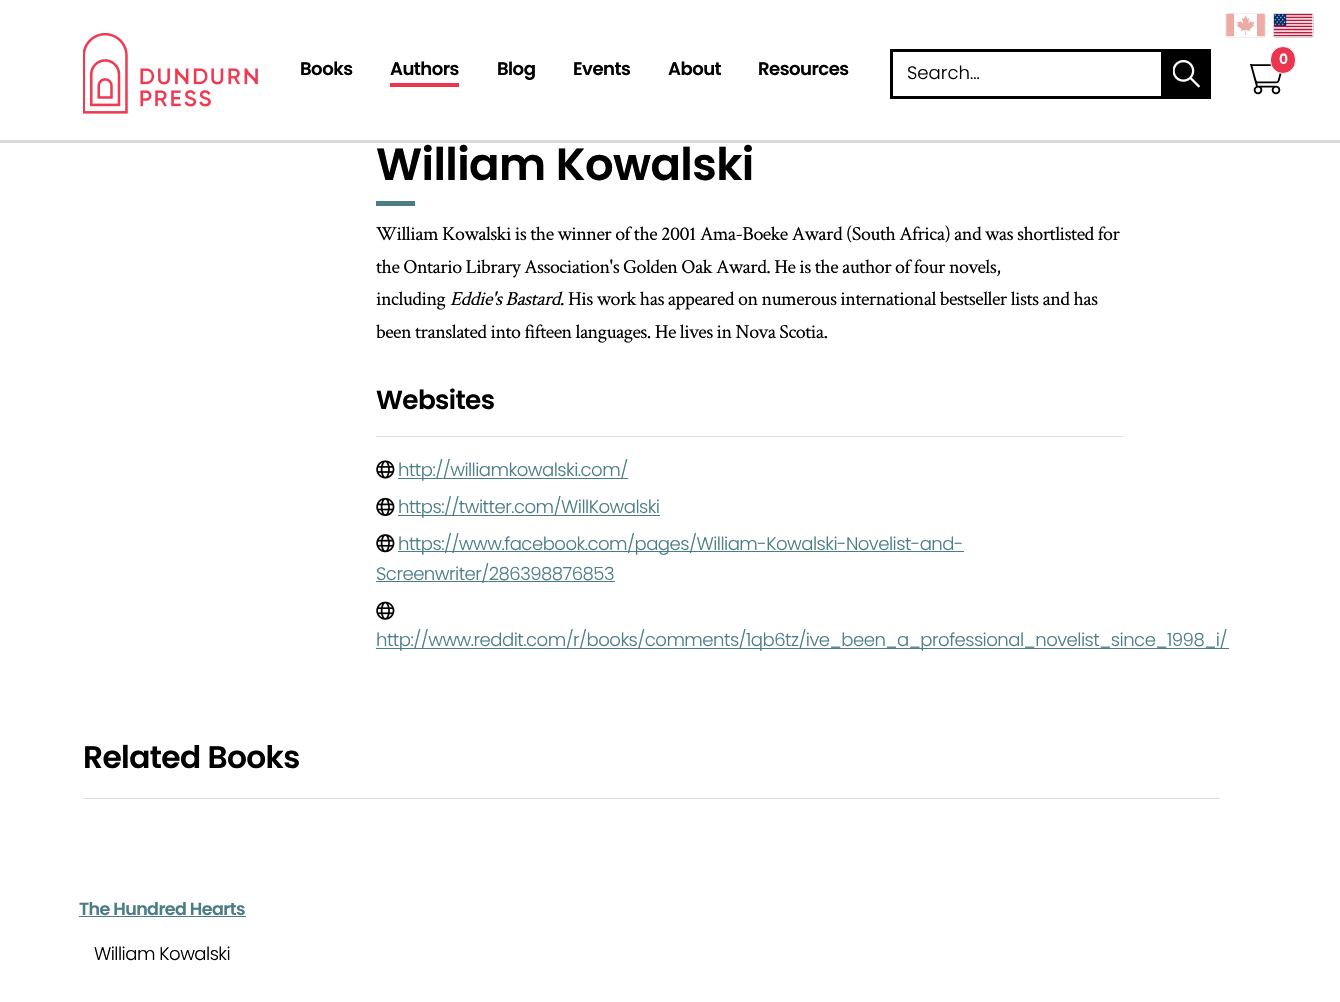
void draw(SkCanvas* canvas) {
    SkPaint paint;
    paint.setAntiAlias(true);
    auto spacedText = [&](const char* s, float x, float y, const SkFont& font, const SkPaint& ink, float letter, float word) {
        std::vector<SkGlyphID> glyphs(font.countText(s, strlen(s), SkTextEncoding::kUTF8));
        std::vector<float> xs(glyphs.size());
        font.textToGlyphs(s, strlen(s), SkTextEncoding::kUTF8, glyphs);
        font.getXPos(glyphs, xs, x);
        float extra = 0;
        for (size_t i = 0; i < glyphs.size(); i++) {
            xs[i] += extra;
            extra += letter + word * (glyphs[i] == font.unicharToGlyph(' '));
        }
        canvas->drawTextBlob(SkTextBlob::MakeFromPosHGlyphs(glyphs, xs, y, font), 0, 0, ink);
    };
    canvas->clear(0xFFFFFFFF);
    paint.setColor(0xFFD9D9D9);
    canvas->drawRect(SkRect::MakeXYWH(0, 140, 1340, 3), paint);
    canvas->drawImageRect(SkImages::DeferredFromEncodedData(SkData::MakeFromFileName("img1.png")), SkRect::MakeXYWH(83, 33, 175, 81), SkSamplingOptions());
    canvas->drawImageRect(SkImages::DeferredFromEncodedData(SkData::MakeFromFileName("img2.png")), SkRect::MakeXYWH(1226, 13, 39, 24), SkSamplingOptions());
    paint.setStyle(SkPaint::kStroke_Style);
    paint.setStrokeWidth(1);
    paint.setColor(0x66D9D9D9);
    canvas->drawRoundRect(SkRect::MakeXYWH(1225.5f, 13.5f, 40, 24), 2, 2, paint);
    canvas->drawImageRect(SkImages::DeferredFromEncodedData(SkData::MakeFromFileName("img3.png")), SkRect::MakeXYWH(1273, 13, 40, 24), SkSamplingOptions());
    paint.setColor(0xFFD9D9D9);
    canvas->drawRoundRect(SkRect::MakeXYWH(1273.5f, 13.5f, 40, 24), 2, 2, paint);
    canvas->drawImageRect(SkImages::DeferredFromEncodedData(SkData::MakeFromFileName("img4.png")), SkRect::MakeXYWH(1250, 64, 32, 31), SkSamplingOptions());
    paint.setStyle(SkPaint::kFill_Style);
    paint.setColor(0xFFEC354E);
    canvas->drawRoundRect(SkRect::MakeXYWH(1270.5f, 46.5f, 25, 27), 12.5f, 12.5f, paint);
    paint.setStyle(SkPaint::kStroke_Style);
    paint.setColor(0xFFFFFFFF);
    canvas->drawRoundRect(SkRect::MakeXYWH(1270.5f, 46.5f, 25, 27), 12.5f, 12.5f, paint);
    SkFont font1(fontMgr->matchFamilyStyle("Poppins", SkFontStyle(600, SkFontStyle::kNormal_Width, SkFontStyle::kUpright_Slant)), 14);
    font1.setSubpixel(true);
    paint.setStyle(SkPaint::kFill_Style);
    spacedText("0", 1279, 64, font1, paint, -0.53f, 0);
    SkFont font2(fontMgr->matchFamilyStyle("Poppins", SkFontStyle(600, SkFontStyle::kNormal_Width, SkFontStyle::kUpright_Slant)), 18.1f);
    font2.setSubpixel(true);
    paint.setColor(0xFF000000);
    spacedText("Books", 300, 75, font2, paint, -0.53f, 0);
    spacedText("Authors", 390, 75, font2, paint, -0.53f, 0);
    paint.setColor(0xFFEC354E);
    canvas->drawRect(SkRect::MakeXYWH(390, 83, 69, 4), paint);
    paint.setColor(0xFF000000);
    spacedText("Blog", 497, 75, font2, paint, -0.53f, 0);
    spacedText("Events", 573, 75, font2, paint, -0.53f, 0);
    spacedText("About", 668, 75, font2, paint, -0.53f, 0);
    spacedText("Resources", 758, 75, font2, paint, -0.53f, 0);
    paint.setStyle(SkPaint::kStroke_Style);
    paint.setStrokeWidth(3);
    canvas->drawRect(SkRect::MakeXYWH(891.5f, 50.5f, 287, 47), paint);
    SkFont font3(fontMgr->matchFamilyStyle("Poppins", SkFontStyle(300, SkFontStyle::kNormal_Width, SkFontStyle::kUpright_Slant)), 18.1f);
    font3.setSubpixel(true);
    paint.setStyle(SkPaint::kFill_Style);
    canvas->drawString("Search...", 907, 79, font3, paint);
    canvas->drawRect(SkRect::MakeXYWH(1161, 49, 50, 50), paint);
    canvas->drawImageRect(SkImages::DeferredFromEncodedData(SkData::MakeFromFileName("img5.png")), SkRect::MakeXYWH(1173, 60, 27, 28), SkSamplingOptions());
    SkFont font4(fontMgr->matchFamilyStyle("Poppins", SkFontStyle(600, SkFontStyle::kNormal_Width, SkFontStyle::kUpright_Slant)), 45);
    font4.setSubpixel(true);
    spacedText("William Kowalski", 376, 180, font4, paint, -0.6f, 0);
    paint.setColor(0xFF4B7D86);
    canvas->drawRect(SkRect::MakeXYWH(376, 201, 39, 5), paint);
    SkFont font5(fontMgr->matchFamilyStyle("Crimson Text", SkFontStyle::Normal()), 20);
    font5.setSubpixel(true);
    paint.setColor(0xFF000000);
    spacedText("William Kowalski is the winner of the 2001 Ama-Boeke Award (South Africa) and was shortlisted for", 376, 240, font5, paint, -0.53f, 0);
    spacedText("the Ontario Library Association's Golden Oak Award. He is the author of four novels,", 376, 273, font5, paint, -0.53f, 0);
    spacedText("including", 376, 305, font5, paint, -0.53f, 0);
    SkFont font6(fontMgr->matchFamilyStyle("Crimson Text", SkFontStyle::Italic()), 20);
    font6.setSubpixel(true);
    spacedText("Eddie's Bastard", 450, 305, font6, paint, -0.53f, 0);
    spacedText(". His work has appeared on numerous international bestseller lists and has", 560, 305, font5, paint, -0.53f, 0);
    spacedText("been translated into fifteen languages. He lives in Nova Scotia.", 376, 338, font5, paint, -0.53f, 0);
    SkFont font7(fontMgr->matchFamilyStyle("Poppins", SkFontStyle(600, SkFontStyle::kNormal_Width, SkFontStyle::kUpright_Slant)), 26.25f);
    font7.setSubpixel(true);
    spacedText("Websites", 376, 409, font7, paint, -0.6f, 0);
    paint.setColor(0xFFDDDDDD);
    canvas->drawRect(SkRect::MakeXYWH(376, 436, 747, 1), paint);
    canvas->drawImageRect(SkImages::DeferredFromEncodedData(SkData::MakeFromFileName("img6.png")), SkRect::MakeXYWH(376, 460, 19, 19), SkSamplingOptions());
    paint.setColor(0xFF4B7D86);
    canvas->drawRect(SkRect::MakeXYWH(398, 478, 230, 1), paint);
    spacedText("http://williamkowalski.com/", 398, 476, font3, paint, -0.53f, 0);
    canvas->drawImageRect(SkImages::DeferredFromEncodedData(SkData::MakeFromFileName("img7.png")), SkRect::MakeXYWH(376, 497, 19, 19), SkSamplingOptions());
    canvas->drawRect(SkRect::MakeXYWH(398, 515, 262, 1), paint);
    spacedText("https://twitter.com/WillKowalski", 398, 513, font3, paint, -0.53f, 0);
    canvas->drawImageRect(SkImages::DeferredFromEncodedData(SkData::MakeFromFileName("img8.png")), SkRect::MakeXYWH(376, 534, 19, 19), SkSamplingOptions());
    canvas->drawRect(SkRect::MakeXYWH(398, 551, 566, 1), paint);
    spacedText("https://www.facebook.com/pages/William-Kowalski-Novelist-and-", 398, 550, font3, paint, -0.53f, 0);
    canvas->drawRect(SkRect::MakeXYWH(376, 581, 239, 1), paint);
    spacedText("Screenwriter/286398876853", 376, 580, font3, paint, -0.53f, 0);
    canvas->drawImageRect(SkImages::DeferredFromEncodedData(SkData::MakeFromFileName("img9.png")), SkRect::MakeXYWH(376, 601, 19, 19), SkSamplingOptions());
    canvas->drawRect(SkRect::MakeXYWH(376, 648, 853, 1), paint);
    spacedText("http://www.reddit.com/r/books/comments/1qb6tz/ive_been_a_professional_novelist_since_1998_i/", 376, 646, font3, paint, -0.53f, 0);
    SkFont font8(fontMgr->matchFamilyStyle("Poppins", SkFontStyle(600, SkFontStyle::kNormal_Width, SkFontStyle::kUpright_Slant)), 31.25f);
    font8.setSubpixel(true);
    paint.setColor(0xFF000000);
    spacedText("Related Books", 83, 768, font8, paint, -0.6f, 0);
    paint.setColor(0xFFDDDDDD);
    canvas->drawRect(SkRect::MakeXYWH(83, 798, 1137, 1), paint);
    SkFont font9(fontMgr->matchFamilyStyle("Poppins", SkFontStyle(600, SkFontStyle::kNormal_Width, SkFontStyle::kUpright_Slant)), 17.5f);
    font9.setSubpixel(true);
    paint.setColor(0xFF4B7D86);
    spacedText("The Hundred Hearts", 79, 915, font9, paint, -0.6f, 0);
    canvas->drawRect(SkRect::MakeXYWH(79, 916, 167, 1), paint);
    paint.setColor(0xFF000000);
    spacedText("William Kowalski", 94, 960, font3, paint, -0.53f, 0);
}
